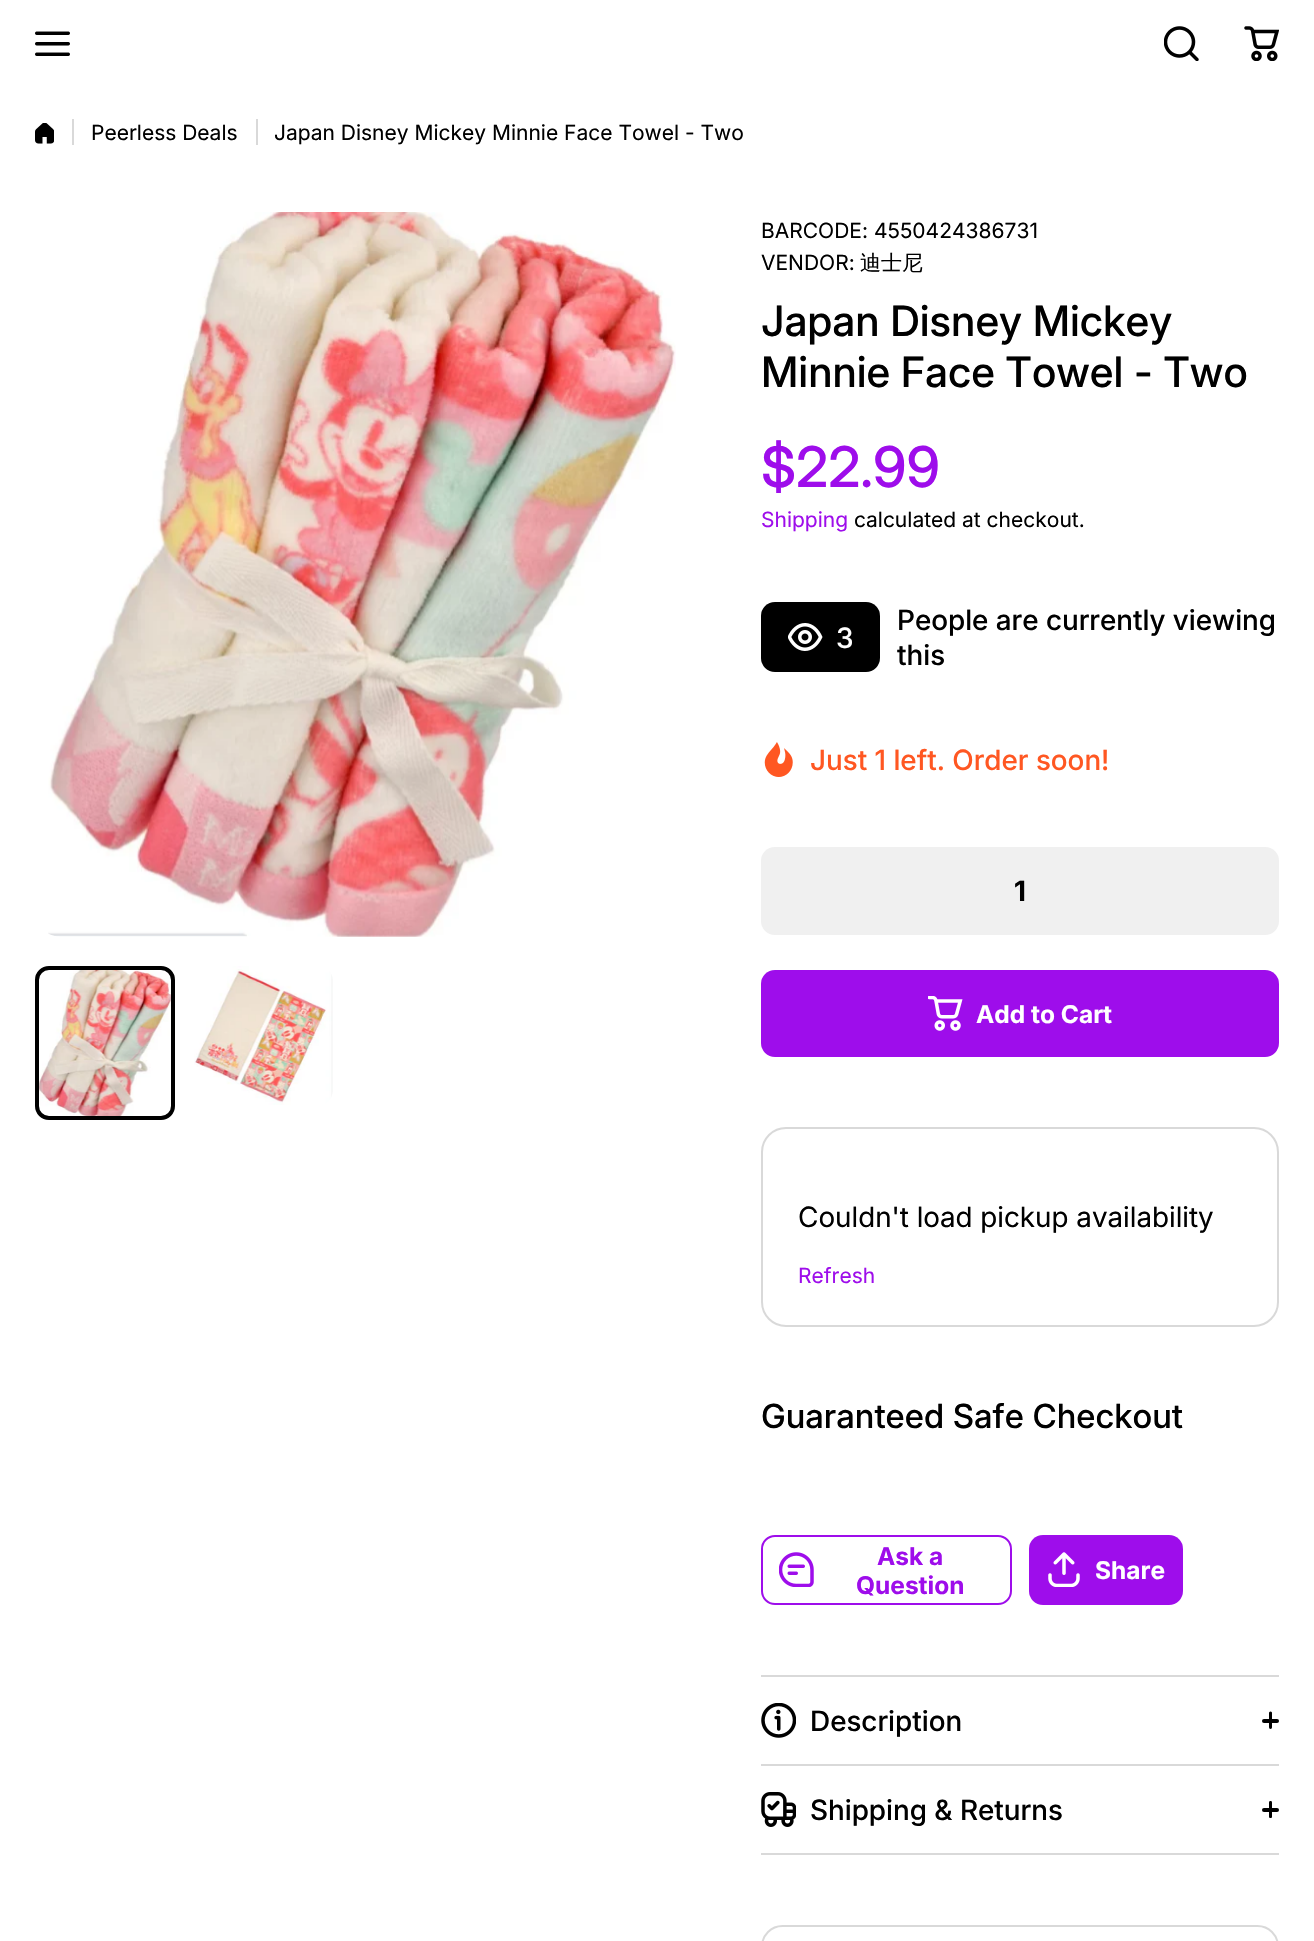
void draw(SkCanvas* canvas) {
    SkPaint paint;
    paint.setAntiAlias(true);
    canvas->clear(0xFFFFFFFF);
    canvas->drawImageRect(SkImages::DeferredFromEncodedData(SkData::MakeFromFileName("img1.png")), SkRect::MakeXYWH(35, 31, 35, 25), SkSamplingOptions());
    canvas->drawImageRect(SkImages::DeferredFromEncodedData(SkData::MakeFromFileName("img2.png")), SkRect::MakeXYWH(1164, 26, 35, 35), SkSamplingOptions());
    canvas->drawImageRect(SkImages::DeferredFromEncodedData(SkData::MakeFromFileName("img3.png")), SkRect::MakeXYWH(1244, 26, 35, 35), SkSamplingOptions());
    canvas->drawImageRect(SkImages::DeferredFromEncodedData(SkData::MakeFromFileName("img4.png")), SkRect::MakeXYWH(35, 123, 19, 21), SkSamplingOptions());
    paint.setColor(0xFFD9D9D9);
    canvas->drawRect(SkRect::MakeXYWH(72, 119, 2, 26), paint);
    SkFont font1(fontMgr->matchFamilyStyle("Inter", SkFontStyle::Normal()), 21);
    font1.setSubpixel(true);
    paint.setColor(0xFF000000);
    canvas->drawString("Peerless Deals", 91, 140, font1, paint);
    paint.setColor(0xFFD9D9D9);
    canvas->drawRect(SkRect::MakeXYWH(256, 119, 2, 26), paint);
    paint.setColor(0xFF000000);
    canvas->drawString("Japan Disney Mickey Minnie Face Towel - Two", 274, 140, font1, paint);
    canvas->drawImageRect(SkImages::DeferredFromEncodedData(SkData::MakeFromFileName("img5.png")), SkRect::MakeXYWH(48, 212, 628, 725), SkSamplingOptions());
    canvas->drawImageRect(SkImages::DeferredFromEncodedData(SkData::MakeFromFileName("img6.png")), SkRect::MakeXYWH(35, 966, 140, 154), SkSamplingOptions());
    paint.setStyle(SkPaint::kStroke_Style);
    paint.setStrokeWidth(4);
    canvas->drawRoundRect(SkRect::MakeXYWH(37, 968, 136, 150), 12, 12, paint);
    canvas->drawImageRect(SkImages::DeferredFromEncodedData(SkData::MakeFromFileName("img7.png")), SkRect::MakeXYWH(194, 966, 139, 139), SkSamplingOptions());
    paint.setStyle(SkPaint::kFill_Style);
    canvas->drawString("BARCODE: 4550424386731", 761, 238, font1, paint);
    canvas->drawString("VENDOR:", 761, 270, font1, paint);
    SkFont font2(fontMgr->matchFamilyStyle("WenQuanYi Zen Hei", SkFontStyle(500, SkFontStyle::kNormal_Width, SkFontStyle::kUpright_Slant)), 21);
    font2.setSubpixel(true);
    canvas->drawString("迪士尼", 860, 270, font2, paint);
    SkFont font3(fontMgr->matchFamilyStyle("Inter", SkFontStyle(500, SkFontStyle::kNormal_Width, SkFontStyle::kUpright_Slant)), 42);
    font3.setSubpixel(true);
    canvas->drawString("Japan Disney Mickey", 761, 336, font3, paint);
    canvas->drawString("Minnie Face Towel - Two", 761, 387, font3, paint);
    SkFont font4(fontMgr->matchFamilyStyle("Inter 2", SkFontStyle(500, SkFontStyle::kNormal_Width, SkFontStyle::kUpright_Slant)), 56);
    font4.setSubpixel(true);
    paint.setColor(0xFF9E0DEB);
    canvas->drawString("$22.99", 761, 487, font4, paint);
    canvas->drawString("Shipping", 761, 527, font1, paint);
    paint.setColor(0xFF000000);
    canvas->drawString("calculated at checkout.", 854, 527, font1, paint);
    canvas->drawRoundRect(SkRect::MakeXYWH(761, 602, 119, 70), 14, 14, paint);
    canvas->drawImageRect(SkImages::DeferredFromEncodedData(SkData::MakeFromFileName("img8.png")), SkRect::MakeXYWH(788, 623, 35, 28), SkSamplingOptions());
    SkFont font5(fontMgr->matchFamilyStyle("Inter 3", SkFontStyle(500, SkFontStyle::kNormal_Width, SkFontStyle::kUpright_Slant)), 28);
    font5.setSubpixel(true);
    paint.setColor(0xFFFFFFFF);
    canvas->drawString("3", 836, 648, font5, paint);
    SkFont font6(fontMgr->matchFamilyStyle("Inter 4", SkFontStyle(500, SkFontStyle::kNormal_Width, SkFontStyle::kUpright_Slant)), 28);
    font6.setSubpixel(true);
    paint.setColor(0xFF000000);
    canvas->drawString("People are currently viewing", 897, 630, font6, paint);
    canvas->drawString("this", 897, 665, font6, paint);
    canvas->drawImageRect(SkImages::DeferredFromEncodedData(SkData::MakeFromFileName("img9.png")), SkRect::MakeXYWH(764, 742, 29, 35), SkSamplingOptions());
    paint.setColor(0xFFFF5722);
    canvas->drawString("Just 1 left. Order soon!", 810, 770, font6, paint);
    paint.setColor(0xFFF0F0F0);
    canvas->drawRoundRect(SkRect::MakeXYWH(761, 847, 518, 88), 14, 14, paint);
    SkFont font7(fontMgr->matchFamilyStyle("Inter", SkFontStyle::Bold()), 28);
    font7.setSubpixel(true);
    paint.setColor(0xFF000000);
    canvas->drawString("1", 1014, 901, font7, paint);
    paint.setColor(0xFF9E0DEB);
    canvas->drawRoundRect(SkRect::MakeXYWH(761, 970, 518, 87), 14, 14, paint);
    canvas->drawImageRect(SkImages::DeferredFromEncodedData(SkData::MakeFromFileName("img10.png")), SkRect::MakeXYWH(928, 996, 35, 35), SkSamplingOptions());
    SkFont font8(fontMgr->matchFamilyStyle("Inter 2", SkFontStyle::Bold()), 24.5f);
    font8.setSubpixel(true);
    paint.setColor(0xFFFFFFFF);
    canvas->drawString("Add to Cart", 976, 1023, font8, paint);
    paint.setStyle(SkPaint::kStroke_Style);
    paint.setStrokeWidth(2);
    paint.setColor(0xFFD9D9D9);
    canvas->drawRoundRect(SkRect::MakeXYWH(762, 1128, 516, 198), 24, 24, paint);
    SkFont font9(fontMgr->matchFamilyStyle("Inter 2", SkFontStyle::Normal()), 28);
    font9.setSubpixel(true);
    paint.setStyle(SkPaint::kFill_Style);
    paint.setColor(0xFF000000);
    canvas->drawString("Couldn't load pickup availability", 798, 1227, font9, paint);
    paint.setColor(0xFF9E0DEB);
    canvas->drawString("Refresh", 798, 1283, font1, paint);
    SkFont font10(fontMgr->matchFamilyStyle("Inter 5", SkFontStyle(500, SkFontStyle::kNormal_Width, SkFontStyle::kUpright_Slant)), 33.25f);
    font10.setSubpixel(true);
    paint.setColor(0xFF000000);
    canvas->drawString("Guaranteed Safe Checkout", 761, 1428, font10, paint);
    paint.setStyle(SkPaint::kStroke_Style);
    paint.setColor(0xFF9E0DEB);
    canvas->drawRoundRect(SkRect::MakeXYWH(762, 1536, 249, 68), 13, 13, paint);
    canvas->drawImageRect(SkImages::DeferredFromEncodedData(SkData::MakeFromFileName("img11.png")), SkRect::MakeXYWH(779, 1552, 35, 35), SkSamplingOptions());
    paint.setStyle(SkPaint::kFill_Style);
    canvas->drawString("Ask a", 877, 1565, font8, paint);
    canvas->drawString("Question", 856, 1594, font8, paint);
    canvas->drawRoundRect(SkRect::MakeXYWH(1029, 1535, 154, 70), 14, 14, paint);
    canvas->drawImageRect(SkImages::DeferredFromEncodedData(SkData::MakeFromFileName("img12.png")), SkRect::MakeXYWH(1048, 1552, 32, 35), SkSamplingOptions());
    paint.setColor(0xFFFFFFFF);
    canvas->drawString("Share", 1095, 1579, font8, paint);
    paint.setColor(0xFFD9D9D9);
    canvas->drawRect(SkRect::MakeXYWH(761, 1675, 518, 2), paint);
    canvas->drawRect(SkRect::MakeXYWH(761, 1764, 518, 2), paint);
    canvas->drawImageRect(SkImages::DeferredFromEncodedData(SkData::MakeFromFileName("img13.png")), SkRect::MakeXYWH(761, 1703, 35, 35), SkSamplingOptions());
    paint.setColor(0xFF000000);
    canvas->drawString("Description", 810, 1731, font6, paint);
    canvas->drawRoundRect(SkRect::MakeXYWH(1262, 1719, 17, 4), 2, 2, paint);
    canvas->drawPath(SkPathBuilder().moveTo(1272, 1713).lineTo(1272, 1727).cubicTo(1272, 1728, 1271.5f, 1729, 1270.5f, 1729).cubicTo(1269.5f, 1729, 1269, 1728, 1269, 1727).lineTo(1269, 1713).cubicTo(1269, 1712.5f, 1269.5f, 1711.5f, 1270.5f, 1711.5f).cubicTo(1271.5f, 1711.5f, 1272, 1712.5f, 1272, 1713).close().detach(), paint);
    paint.setColor(0xFFD9D9D9);
    canvas->drawRect(SkRect::MakeXYWH(761, 1853, 518, 2), paint);
    canvas->drawImageRect(SkImages::DeferredFromEncodedData(SkData::MakeFromFileName("img14.png")), SkRect::MakeXYWH(761, 1792, 35, 35), SkSamplingOptions());
    paint.setColor(0xFF000000);
    canvas->drawString("Shipping & Returns", 810, 1820, font6, paint);
    canvas->drawRoundRect(SkRect::MakeXYWH(1262, 1808, 17, 4), 2, 2, paint);
    canvas->drawPath(SkPathBuilder().moveTo(1272, 1802.5f).lineTo(1272, 1816.5f).cubicTo(1272, 1817.5f, 1271.5f, 1818, 1270.5f, 1818).cubicTo(1269.5f, 1818, 1269, 1817.5f, 1269, 1816.5f).lineTo(1269, 1802.5f).cubicTo(1269, 1801.5f, 1269.5f, 1801, 1270.5f, 1801).cubicTo(1271.5f, 1801, 1272, 1801.5f, 1272, 1802.5f).close().detach(), paint);
    paint.setStyle(SkPaint::kStroke_Style);
    paint.setColor(0xFFD9D9D9);
    canvas->drawRoundRect(SkRect::MakeXYWH(762, 1926, 516, 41), 24, 24, paint);
}
